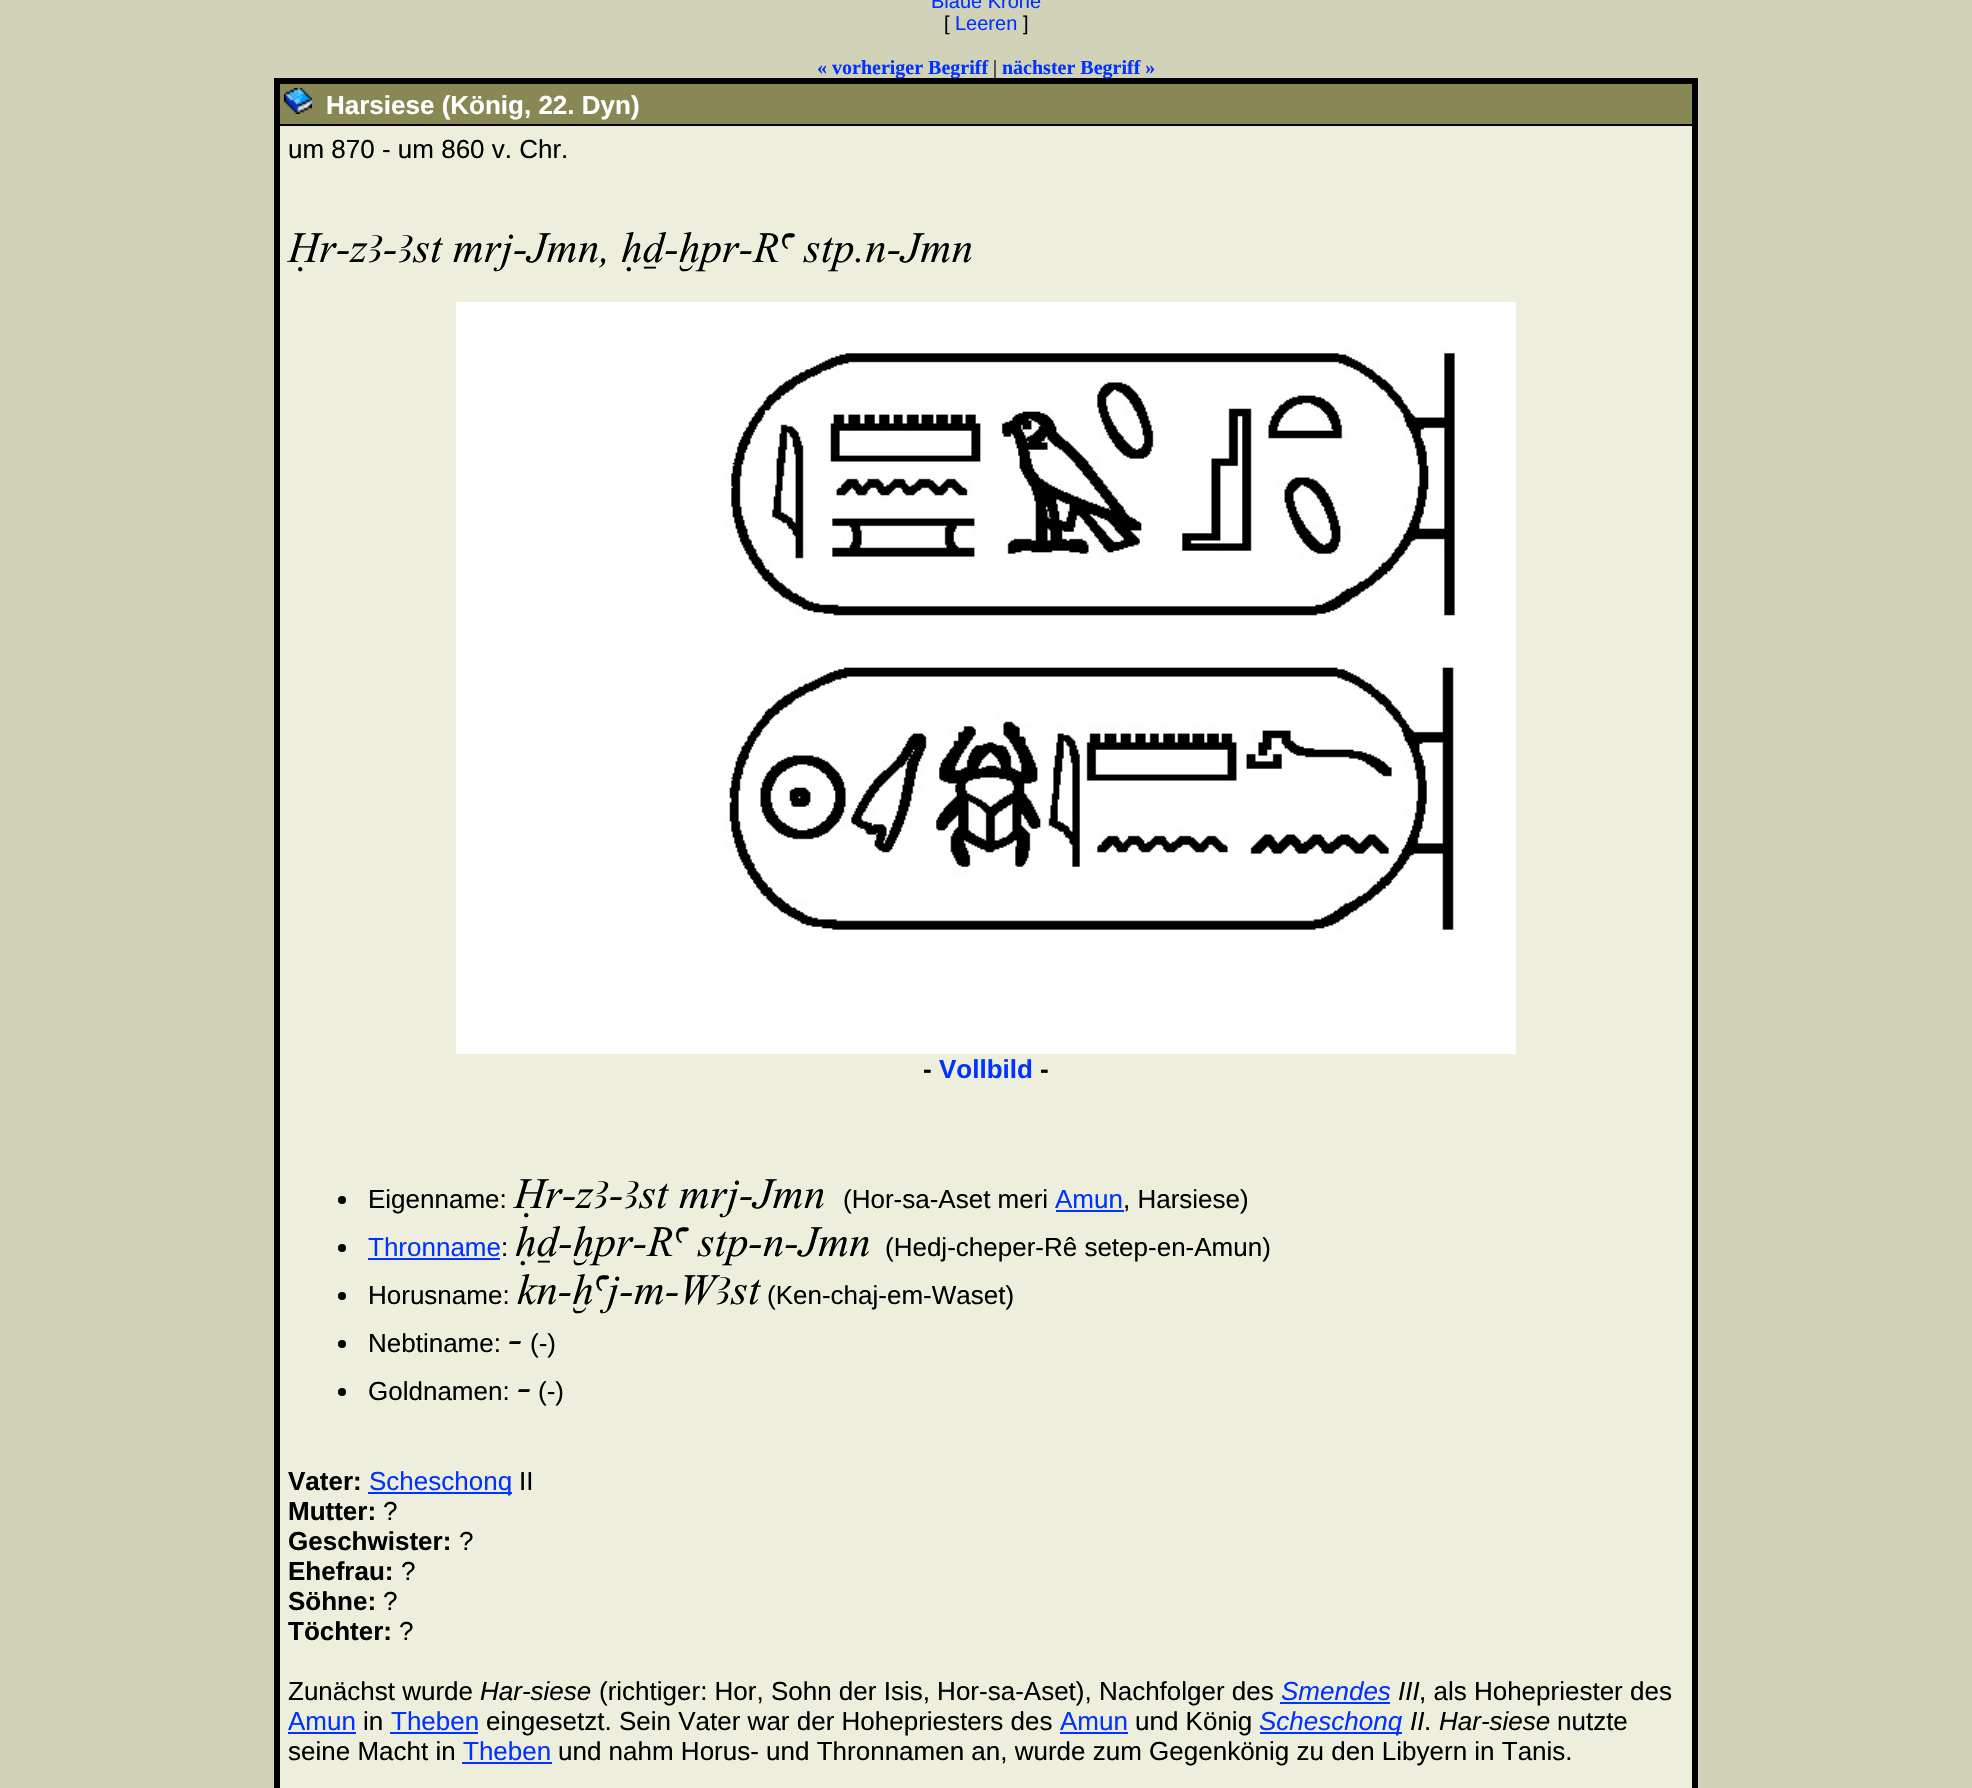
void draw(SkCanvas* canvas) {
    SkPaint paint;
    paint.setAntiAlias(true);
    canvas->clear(0xFFD2D2B9);
    SkFont font1(fontMgr->matchFamilyStyle("Liberation Sans", SkFontStyle::Normal()), 20);
    font1.setSubpixel(true);
    paint.setColor(0xFF0033FF);
    canvas->drawString("Blaue Krone", 931, 8, font1, paint);
    paint.setColor(0xFF000000);
    canvas->drawString("[", 944, 30, font1, paint);
    paint.setColor(0xFF0033FF);
    canvas->drawString("Leeren", 955, 30, font1, paint);
    paint.setColor(0xFF000000);
    canvas->drawString("]", 1023, 30, font1, paint);
    canvas->drawRect(SkRect::MakeXYWH(274, 78, 1424, 1710), paint);
    SkFont font2(fontMgr->matchFamilyStyle("Liberation Serif", SkFontStyle::Bold()), 20);
    font2.setSubpixel(true);
    paint.setColor(0xFF0033FF);
    canvas->drawString("« vorheriger Begriff", 817, 74, font2, paint);
    SkFont font3(fontMgr->matchFamilyStyle("Liberation Serif", SkFontStyle::Normal()), 20);
    font3.setSubpixel(true);
    paint.setColor(0xFF000000);
    canvas->drawString("|", 993, 74, font3, paint);
    paint.setColor(0xFF0033FF);
    canvas->drawString("nächster Begriff »", 1002, 74, font2, paint);
    paint.setColor(0xFF888855);
    canvas->drawRect(SkRect::MakeXYWH(280, 84, 1412, 40), paint);
    canvas->drawImageRect(SkImages::DeferredFromEncodedData(SkData::MakeFromFileName("img1.png")), SkRect::MakeXYWH(284, 88, 28, 26), SkSamplingOptions());
    SkFont font4(fontMgr->matchFamilyStyle("Liberation Sans", SkFontStyle::Bold()), 26);
    font4.setSubpixel(true);
    paint.setColor(0xFFFFFFFF);
    canvas->drawString("Harsiese (König, 22. Dyn)", 326, 114, font4, paint);
    paint.setColor(0xFFEEEEDD);
    canvas->drawRect(SkRect::MakeXYWH(280, 126, 1412, 1662), paint);
    SkFont font5(fontMgr->matchFamilyStyle("Liberation Sans", SkFontStyle::Normal()), 26);
    font5.setSubpixel(true);
    paint.setColor(0xFF000000);
    canvas->drawString("um 870 - um 860 v. Chr.", 288, 158, font5, paint);
    SkFont font6(fontMgr->matchFamilyStyle("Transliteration", SkFontStyle::Italic()), 43.25f);
    font6.setSubpixel(true);
    canvas->drawString("@r-zA-Ast mrj-Jmn, HD-xpr-Ra stp.n-Jmn", 288, 262, font6, paint);
    canvas->drawImageRect(SkImages::DeferredFromEncodedData(SkData::MakeFromFileName("img2.png")), SkRect::MakeXYWH(456, 302, 1060, 752), SkSamplingOptions());
    canvas->drawString("-", 923, 1078, font4, paint);
    paint.setColor(0xFF0033FF);
    canvas->drawString("Vollbild", 939, 1078, font4, paint);
    paint.setColor(0xFF000000);
    canvas->drawString("-", 1040, 1078, font4, paint);
    canvas->drawCircle(342, 1200, 4, paint);
    canvas->drawString("Eigenname:", 368, 1208, font5, paint);
    canvas->drawString("@r-zA-Ast mrj-Jmn", 514, 1208, font6, paint);
    canvas->drawString("(Hor-sa-Aset meri", 843, 1208, font5, paint);
    paint.setColor(0xFF0033FF);
    canvas->drawString("Amun", 1055, 1208, font5, paint);
    paint.setColor(0xFF000000);
    canvas->drawString(", Harsiese)", 1123, 1208, font5, paint);
    paint.setColor(0xFF0033FF);
    canvas->drawRect(SkRect::MakeXYWH(1056, 1210, 68, 2), paint);
    paint.setColor(0xFF000000);
    canvas->drawCircle(342, 1248, 4, paint);
    paint.setColor(0xFF0033FF);
    canvas->drawString("Thronname", 368, 1256, font5, paint);
    paint.setColor(0xFF000000);
    canvas->drawString(":", 501, 1256, font5, paint);
    paint.setColor(0xFF0033FF);
    canvas->drawRect(SkRect::MakeXYWH(368, 1258, 132, 2), paint);
    paint.setColor(0xFF000000);
    canvas->drawString("HD-xpr-Ra stp-n-Jmn", 515, 1256, font6, paint);
    canvas->drawString("(Hedj-cheper-Rê setep-en-Amun)", 885, 1256, font5, paint);
    canvas->drawCircle(342, 1296, 4, paint);
    canvas->drawString("Horusname:", 368, 1304, font5, paint);
    canvas->drawString("kn-xaj-m-WAst", 517, 1304, font6, paint);
    canvas->drawString("(Ken-chaj-em-Waset)", 767, 1304, font5, paint);
    canvas->drawCircle(342, 1344, 4, paint);
    canvas->drawString("Nebtiname:", 368, 1352, font5, paint);
    canvas->drawString("-", 508, 1352, font6, paint);
    canvas->drawString("(-)", 530, 1352, font5, paint);
    canvas->drawCircle(342, 1392, 4, paint);
    canvas->drawString("Goldnamen:", 368, 1400, font5, paint);
    canvas->drawString("-", 517, 1400, font6, paint);
    canvas->drawString("(-)", 538, 1400, font5, paint);
    canvas->drawString("Vater:", 288, 1490, font4, paint);
    paint.setColor(0xFF0033FF);
    canvas->drawRect(SkRect::MakeXYWH(368, 1492, 144, 2), paint);
    canvas->drawString("Scheschonq", 369, 1490, font5, paint);
    paint.setColor(0xFF000000);
    canvas->drawString("II", 519, 1490, font5, paint);
    canvas->drawString("Mutter:", 288, 1520, font4, paint);
    canvas->drawString("?", 383, 1520, font5, paint);
    canvas->drawString("Geschwister:", 288, 1550, font4, paint);
    canvas->drawString("?", 459, 1550, font5, paint);
    canvas->drawString("Ehefrau:", 288, 1580, font4, paint);
    canvas->drawString("?", 401, 1580, font5, paint);
    canvas->drawString("Söhne:", 288, 1610, font4, paint);
    canvas->drawString("?", 383, 1610, font5, paint);
    canvas->drawString("Töchter:", 288, 1640, font4, paint);
    canvas->drawString("?", 399, 1640, font5, paint);
    canvas->drawString("Zunächst wurde", 288, 1700, font5, paint);
    SkFont font7(fontMgr->matchFamilyStyle("Liberation Sans", SkFontStyle::Italic()), 26);
    font7.setSubpixel(true);
    canvas->drawString("Har-siese", 480, 1700, font7, paint);
    canvas->drawString("(richtiger: Hor, Sohn der Isis, Hor-sa-Aset), Nachfolger des", 599, 1700, font5, paint);
    paint.setColor(0xFF0033FF);
    canvas->drawString("Smendes", 1281, 1700, font7, paint);
    canvas->drawRect(SkRect::MakeXYWH(1280, 1702, 110, 2), paint);
    paint.setColor(0xFF000000);
    canvas->drawString("III", 1398, 1700, font7, paint);
    canvas->drawString(", als Hohepriester des", 1419, 1700, font5, paint);
    paint.setColor(0xFF0033FF);
    canvas->drawString("Amun", 288, 1730, font5, paint);
    canvas->drawRect(SkRect::MakeXYWH(288, 1732, 68, 2), paint);
    paint.setColor(0xFF000000);
    canvas->drawString("in", 363, 1730, font5, paint);
    paint.setColor(0xFF0033FF);
    canvas->drawString("Theben", 391, 1730, font5, paint);
    canvas->drawRect(SkRect::MakeXYWH(390, 1732, 88, 2), paint);
    paint.setColor(0xFF000000);
    canvas->drawString("eingesetzt. Sein Vater war der Hohepriesters des", 486, 1730, font5, paint);
    paint.setColor(0xFF0033FF);
    canvas->drawString("Amun", 1060, 1730, font5, paint);
    canvas->drawRect(SkRect::MakeXYWH(1060, 1732, 68, 2), paint);
    paint.setColor(0xFF000000);
    canvas->drawString("und König", 1135, 1730, font5, paint);
    paint.setColor(0xFF0033FF);
    canvas->drawRect(SkRect::MakeXYWH(1260, 1732, 142, 2), paint);
    canvas->drawString("Scheschonq", 1259, 1730, font7, paint);
    paint.setColor(0xFF000000);
    canvas->drawString("II", 1410, 1730, font7, paint);
    canvas->drawString(".", 1424, 1730, font5, paint);
    canvas->drawString("Har-siese", 1439, 1730, font7, paint);
    canvas->drawString("nutzte", 1557, 1730, font5, paint);
    canvas->drawString("seine Macht in", 288, 1760, font5, paint);
    paint.setColor(0xFF0033FF);
    canvas->drawString("Theben", 463, 1760, font5, paint);
    canvas->drawRect(SkRect::MakeXYWH(462, 1762, 90, 2), paint);
    paint.setColor(0xFF000000);
    canvas->drawString("und nahm Horus- und Thronnamen an, wurde zum Gegenkönig zu den Libyern in Tanis.", 558, 1760, font5, paint);
}
